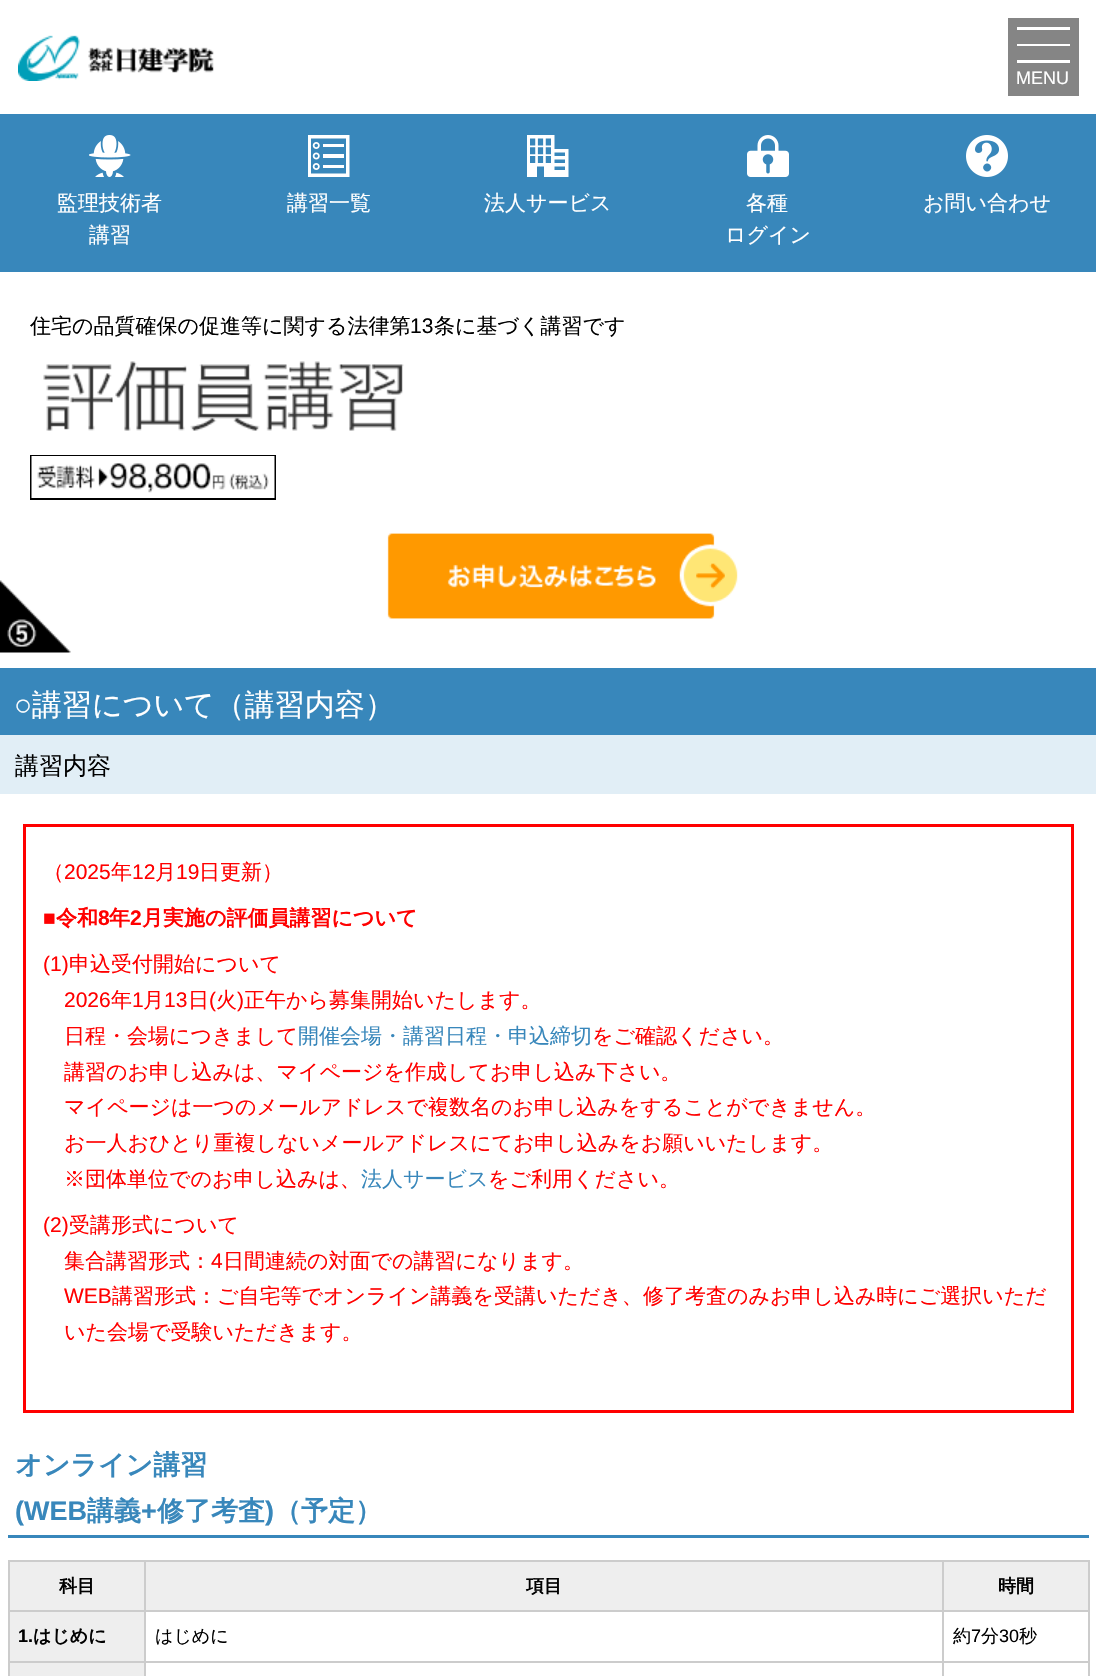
void draw(SkCanvas* canvas) {
    SkPaint paint;
    paint.setAntiAlias(true);
    canvas->clear(0xFFFFFFFF);
    canvas->drawImageRect(SkImages::DeferredFromEncodedData(SkData::MakeFromFileName("img1.png")), SkRect::MakeXYWH(18, 35, 196, 46), SkSamplingOptions());
    paint.setColor(0xFF858585);
    canvas->drawRect(SkRect::MakeXYWH(1008, 18, 71, 78), paint);
    {
        const SkColor colors[] = {0xFF858585, 0xFF858585, 0xFFFFFFFF, 0xFFFFFFFF, 0xFF858585, 0xFF858585};
        const float stops[] = {0, 0.46f, 0.46f, 0.54f, 0.54f, 1};
        const SkPoint ends[] = {{1043, 27}, {1043, 63}};
        paint.setShader(SkGradientShader::MakeLinear(ends, colors, stops, 6, SkTileMode::kClamp));
        paint.setAlpha(255);
    }
    canvas->drawRect(SkRect::MakeXYWH(1017, 44, 53, 2), paint);
    paint.setShader(nullptr);
    paint.setColor(0xFFFFFFFF);
    canvas->drawRect(SkRect::MakeXYWH(1017, 27, 53, 3), paint);
    canvas->drawRect(SkRect::MakeXYWH(1017, 60, 53, 3), paint);
    SkFont font1(fontMgr->matchFamilyStyle("Liberation Sans", SkFontStyle::Normal()), 18);
    font1.setSubpixel(true);
    canvas->drawString("MENU", 1016, 84, font1, paint);
    paint.setColor(0xFF3887BB);
    canvas->drawRect(SkRect::MakeXYWH(0, 114, 1096, 158), paint);
    canvas->drawImageRect(SkImages::DeferredFromEncodedData(SkData::MakeFromFileName("img2.png")), SkRect::MakeXYWH(89, 135, 42, 42), SkSamplingOptions());
    SkFont font2(fontMgr->matchFamilyStyle("WenQuanYi Zen Hei", SkFontStyle(500, SkFontStyle::kNormal_Width, SkFontStyle::kUpright_Slant)), 21);
    font2.setSubpixel(true);
    paint.setColor(0xFFFFFFFF);
    canvas->drawString("監理技術者", 57, 210, font2, paint);
    canvas->drawString("講習", 89, 242, font2, paint);
    canvas->drawImageRect(SkImages::DeferredFromEncodedData(SkData::MakeFromFileName("img3.png")), SkRect::MakeXYWH(308, 135, 42, 42), SkSamplingOptions());
    canvas->drawString("講習一覧", 287, 210, font2, paint);
    canvas->drawImageRect(SkImages::DeferredFromEncodedData(SkData::MakeFromFileName("img4.png")), SkRect::MakeXYWH(527, 135, 42, 42), SkSamplingOptions());
    canvas->drawString("法人サービス", 484, 210, font2, paint);
    canvas->drawImageRect(SkImages::DeferredFromEncodedData(SkData::MakeFromFileName("img5.png")), SkRect::MakeXYWH(747, 135, 42, 42), SkSamplingOptions());
    canvas->drawString("各種", 746, 210, font2, paint);
    canvas->drawString("ログイン", 725, 242, font2, paint);
    canvas->drawImageRect(SkImages::DeferredFromEncodedData(SkData::MakeFromFileName("img6.png")), SkRect::MakeXYWH(966, 135, 42, 42), SkSamplingOptions());
    canvas->drawString("お問い合わせ", 923, 210, font2, paint);
    canvas->drawImageRect(SkImages::DeferredFromEncodedData(SkData::MakeFromFileName("img7.png")), SkRect::MakeXYWH(0, 580, 71, 73), SkSamplingOptions());
    paint.setColor(0xFF000000);
    canvas->drawString("住宅の品質確保の促進等に関する法律第", 30, 333, font2, paint);
    SkFont font3(fontMgr->matchFamilyStyle("Liberation Sans", SkFontStyle::Normal()), 21);
    font3.setSubpixel(true);
    canvas->drawString("13", 410, 333, font3, paint);
    canvas->drawString("条に基づく講習です", 434, 333, font2, paint);
    canvas->drawImageRect(SkImages::DeferredFromEncodedData(SkData::MakeFromFileName("img8.png")), SkRect::MakeXYWH(43, 361, 361, 70), SkSamplingOptions());
    paint.setStyle(SkPaint::kStroke_Style);
    paint.setStrokeWidth(2);
    canvas->drawRect(SkRect::MakeXYWH(31, 456, 244, 43), paint);
    canvas->drawImageRect(SkImages::DeferredFromEncodedData(SkData::MakeFromFileName("img9.png")), SkRect::MakeXYWH(31, 456, 244, 42), SkSamplingOptions());
    canvas->drawImageRect(SkImages::DeferredFromEncodedData(SkData::MakeFromFileName("img10.png")), SkRect::MakeXYWH(387, 533, 351, 86), SkSamplingOptions());
    paint.setStyle(SkPaint::kFill_Style);
    paint.setColor(0xFF3887BB);
    canvas->drawRect(SkRect::MakeXYWH(0, 668, 1096, 67), paint);
    SkFont font4(fontMgr->matchFamilyStyle("Liberation Sans", SkFontStyle::Normal()), 30);
    font4.setSubpixel(true);
    paint.setColor(0xFFFFFFFF);
    canvas->drawString("○", 14, 715, font4, paint);
    SkFont font5(fontMgr->matchFamilyStyle("WenQuanYi Zen Hei", SkFontStyle(500, SkFontStyle::kNormal_Width, SkFontStyle::kUpright_Slant)), 30);
    font5.setSubpixel(true);
    canvas->drawString("講習について（講習内容）", 32, 715, font5, paint);
    paint.setColor(0xFFE1EEF6);
    canvas->drawRect(SkRect::MakeXYWH(0, 735, 1096, 59), paint);
    SkFont font6(fontMgr->matchFamilyStyle("WenQuanYi Zen Hei", SkFontStyle(500, SkFontStyle::kNormal_Width, SkFontStyle::kUpright_Slant)), 24);
    font6.setSubpixel(true);
    paint.setColor(0xFF000000);
    canvas->drawString("講習内容", 15, 774, font6, paint);
    paint.setStyle(SkPaint::kStroke_Style);
    paint.setStrokeWidth(3);
    paint.setColor(0xFFFF0000);
    canvas->drawRect(SkRect::MakeXYWH(24.5f, 825.5f, 1048, 586), paint);
    paint.setStyle(SkPaint::kFill_Style);
    canvas->drawString("（", 43, 879, font2, paint);
    canvas->drawString("2025", 64, 879, font3, paint);
    canvas->drawString("年", 111, 879, font2, paint);
    canvas->drawString("12", 132, 879, font3, paint);
    canvas->drawString("月", 155, 879, font2, paint);
    canvas->drawString("19", 176, 879, font3, paint);
    canvas->drawString("日更新）", 199, 879, font2, paint);
    canvas->drawString("■", 43, 925, font3, paint);
    SkFont font7(fontMgr->matchFamilyStyle("WenQuanYi Zen Hei", SkFontStyle::Bold()), 21);
    font7.setSubpixel(true);
    canvas->drawString("令和", 56, 925, font7, paint);
    SkFont font8(fontMgr->matchFamilyStyle("Liberation Sans", SkFontStyle::Bold()), 21);
    font8.setSubpixel(true);
    canvas->drawString("8", 98, 925, font8, paint);
    canvas->drawString("年", 109, 925, font7, paint);
    canvas->drawString("2", 130, 925, font8, paint);
    canvas->drawString("月実施の評価員講習について", 142, 925, font7, paint);
    canvas->drawString("(1)", 43, 971, font3, paint);
    canvas->drawString("申込受付開始について", 69, 971, font2, paint);
    canvas->drawString("2026", 64, 1007, font3, paint);
    canvas->drawString("年", 111, 1007, font2, paint);
    canvas->drawString("1", 132, 1007, font3, paint);
    canvas->drawString("月", 143, 1007, font2, paint);
    canvas->drawString("13", 164, 1007, font3, paint);
    canvas->drawString("日", 188, 1007, font2, paint);
    canvas->drawString("(", 209, 1007, font3, paint);
    canvas->drawString("火", 216, 1007, font2, paint);
    canvas->drawString(")", 237, 1007, font3, paint);
    canvas->drawString("正午から募集開始いたします。", 244, 1007, font2, paint);
    canvas->drawString("日程・会場につきまして", 64, 1043, font2, paint);
    paint.setColor(0xFF3887BB);
    canvas->drawString("開催会場・講習日程・申込締切", 298, 1043, font2, paint);
    paint.setColor(0xFFFF0000);
    canvas->drawString("をご確認ください。", 592, 1043, font2, paint);
    canvas->drawString("講習のお申し込みは、マイページを作成してお申し込み下さい。", 64, 1079, font2, paint);
    canvas->drawString("マイページは一つのメールアドレスで複数名のお申し込みをすることができません。", 64, 1114, font2, paint);
    canvas->drawString("お一人おひとり重複しないメールアドレスにてお申し込みをお願いいたします。", 64, 1150, font2, paint);
    canvas->drawString("※団体単位でのお申し込みは、", 64, 1186, font2, paint);
    paint.setColor(0xFF3887BB);
    canvas->drawString("法人サービス", 361, 1186, font2, paint);
    paint.setColor(0xFFFF0000);
    canvas->drawString("をご利用ください。", 488, 1186, font2, paint);
    canvas->drawString("(2)", 43, 1232, font3, paint);
    canvas->drawString("受講形式について", 69, 1232, font2, paint);
    canvas->drawString("集合講習形式：", 64, 1268, font2, paint);
    canvas->drawString("4", 211, 1268, font3, paint);
    canvas->drawString("日間連続の対面での講習になります。", 223, 1268, font2, paint);
    canvas->drawString("WEB", 64, 1303, font3, paint);
    canvas->drawString("講習形式：ご自宅等でオンライン講義を受講いただき、修了考査のみお申し込み時にご選択いただ", 112, 1303, font2, paint);
    canvas->drawString("いた会場で受験いただきます。", 64, 1339, font2, paint);
    paint.setColor(0xFF3887BB);
    canvas->drawRect(SkRect::MakeXYWH(8, 1535, 1081, 3), paint);
    SkFont font9(fontMgr->matchFamilyStyle("WenQuanYi Zen Hei", SkFontStyle::Bold()), 27);
    font9.setSubpixel(true);
    canvas->drawString("オンライン講習", 15, 1474, font9, paint);
    SkFont font10(fontMgr->matchFamilyStyle("Liberation Sans", SkFontStyle::Bold()), 27);
    font10.setSubpixel(true);
    canvas->drawString("(WEB", 15, 1520, font10, paint);
    canvas->drawString("講義", 87, 1520, font9, paint);
    canvas->drawString("+", 141, 1520, font10, paint);
    canvas->drawString("修了考査", 157, 1520, font9, paint);
    canvas->drawString(")", 265, 1520, font10, paint);
    canvas->drawString("（予定）", 274, 1520, font9, paint);
    paint.setColor(0xFFCCCCCC);
    canvas->drawRect(SkRect::MakeXYWH(8, 1560, 1081, 2), paint);
    canvas->drawRect(SkRect::MakeXYWH(8, 1560, 2, 116), paint);
    paint.setColor(0xFFEEEEEE);
    canvas->drawRect(SkRect::MakeXYWH(10, 1663, 134, 13), paint);
    paint.setColor(0xFFCCCCCC);
    canvas->drawRect(SkRect::MakeXYWH(144, 1661, 2, 15), paint);
    canvas->drawRect(SkRect::MakeXYWH(942, 1661, 2, 15), paint);
    canvas->drawRect(SkRect::MakeXYWH(1088, 1560, 2, 116), paint);
    paint.setColor(0xFFEEEEEE);
    canvas->drawRect(SkRect::MakeXYWH(10, 1562, 134, 48), paint);
    paint.setColor(0xFFCCCCCC);
    canvas->drawRect(SkRect::MakeXYWH(942, 1661, 147, 2), paint);
    canvas->drawRect(SkRect::MakeXYWH(942, 1610, 2, 52), paint);
    canvas->drawRect(SkRect::MakeXYWH(942, 1610, 147, 2), paint);
    canvas->drawRect(SkRect::MakeXYWH(942, 1560, 2, 51), paint);
    canvas->drawRect(SkRect::MakeXYWH(144, 1661, 800, 2), paint);
    canvas->drawRect(SkRect::MakeXYWH(144, 1610, 2, 52), paint);
    canvas->drawRect(SkRect::MakeXYWH(144, 1610, 800, 2), paint);
    canvas->drawRect(SkRect::MakeXYWH(144, 1560, 2, 51), paint);
    canvas->drawRect(SkRect::MakeXYWH(8, 1610, 138, 2), paint);
    SkFont font11(fontMgr->matchFamilyStyle("WenQuanYi Zen Hei", SkFontStyle::Bold()), 18);
    font11.setSubpixel(true);
    paint.setColor(0xFF000000);
    canvas->drawString("科目", 59, 1592, font11, paint);
    paint.setColor(0xFFEEEEEE);
    canvas->drawRect(SkRect::MakeXYWH(146, 1562, 796, 48), paint);
    paint.setColor(0xFF000000);
    canvas->drawString("項目", 526, 1592, font11, paint);
    paint.setColor(0xFFEEEEEE);
    canvas->drawRect(SkRect::MakeXYWH(944, 1562, 144, 48), paint);
    paint.setColor(0xFF000000);
    canvas->drawString("時間", 998, 1592, font11, paint);
    paint.setColor(0xFFEEEEEE);
    canvas->drawRect(SkRect::MakeXYWH(10, 1612, 134, 49), paint);
    paint.setColor(0xFFCCCCCC);
    canvas->drawRect(SkRect::MakeXYWH(8, 1661, 138, 2), paint);
    SkFont font12(fontMgr->matchFamilyStyle("Liberation Sans", SkFontStyle::Bold()), 18);
    font12.setSubpixel(true);
    paint.setColor(0xFF000000);
    canvas->drawString("1.", 18, 1642, font12, paint);
    canvas->drawString("はじめに", 33, 1642, font11, paint);
    SkFont font13(fontMgr->matchFamilyStyle("WenQuanYi Zen Hei", SkFontStyle(500, SkFontStyle::kNormal_Width, SkFontStyle::kUpright_Slant)), 18);
    font13.setSubpixel(true);
    canvas->drawString("はじめに", 155, 1642, font13, paint);
    canvas->drawString("約", 953, 1642, font13, paint);
    canvas->drawString("7", 971, 1642, font1, paint);
    canvas->drawString("分", 981, 1642, font13, paint);
    canvas->drawString("30", 999, 1642, font1, paint);
    canvas->drawString("秒", 1019, 1642, font13, paint);
}
